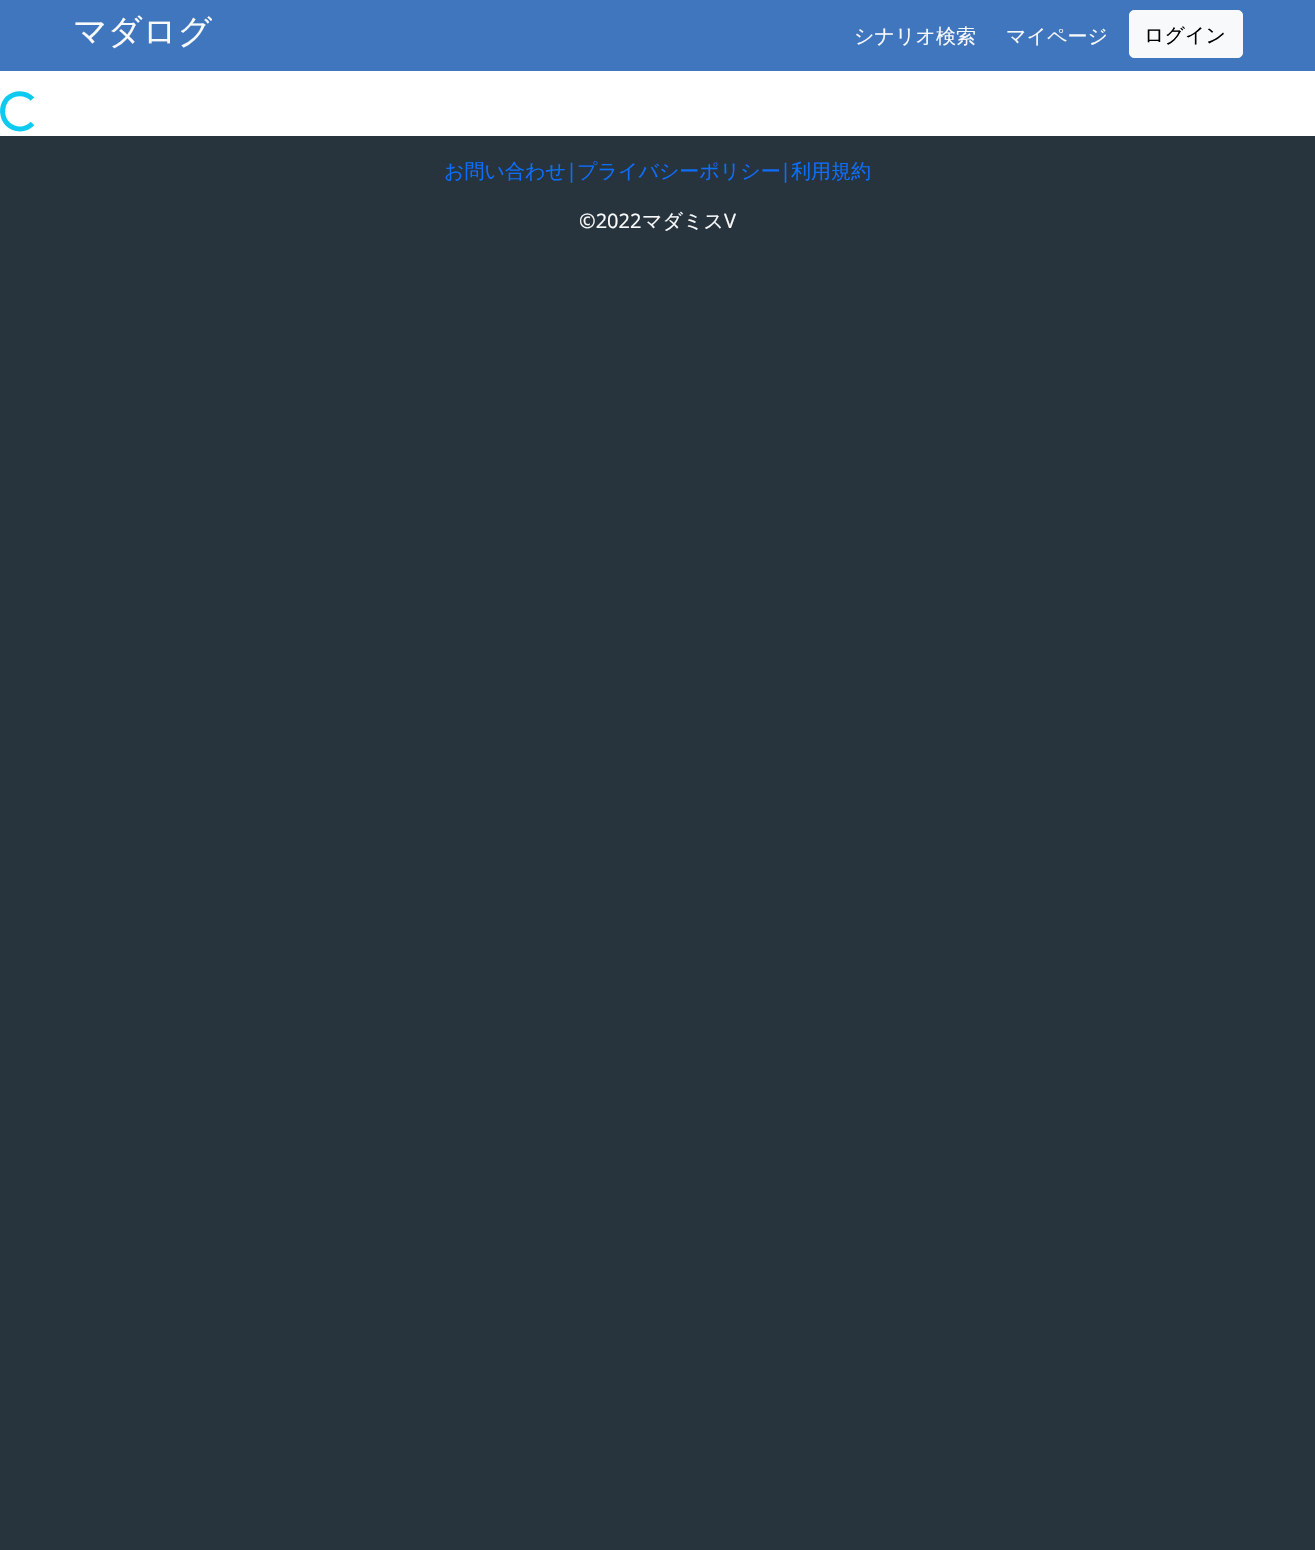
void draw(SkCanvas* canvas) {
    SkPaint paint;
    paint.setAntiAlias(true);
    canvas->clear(0xFFFFFFFF);
    paint.setColor(0xFF3F76BE);
    canvas->drawRect(SkRect::MakeXYWH(0, 0, 1315, 71), paint);
    SkFont font1(fontMgr->matchFamilyStyle("WenQuanYi Zen Hei", SkFontStyle(500, SkFontStyle::kNormal_Width, SkFontStyle::kUpright_Slant)), 34);
    font1.setSubpixel(true);
    paint.setColor(0xFFF8F9FA);
    canvas->drawString("マダログ", 73, 43, font1, paint);
    SkFont font2(fontMgr->matchFamilyStyle("WenQuanYi Zen Hei", SkFontStyle(500, SkFontStyle::kNormal_Width, SkFontStyle::kUpright_Slant)), 20);
    font2.setSubpixel(true);
    canvas->drawString("シナリオ検索", 854, 43, font2, paint);
    canvas->drawString("マイページ", 1006, 43, font2, paint);
    canvas->drawRoundRect(SkRect::MakeXYWH(1129.5f, 10.5f, 113, 47), 4.5f, 4.5f, paint);
    paint.setStyle(SkPaint::kStroke_Style);
    paint.setStrokeWidth(1);
    canvas->drawRoundRect(SkRect::MakeXYWH(1129.5f, 10.5f, 113, 47), 4.5f, 4.5f, paint);
    paint.setStyle(SkPaint::kFill_Style);
    paint.setColor(0xFF000000);
    canvas->drawString("ログイン", 1144, 42, font2, paint);
    paint.setStyle(SkPaint::kStroke_Style);
    paint.setStrokeWidth(5);
    paint.setColor(0xFF0DCAF0);
    canvas->drawPath(SkPathBuilder().moveTo(32.5f, 123.5f).cubicTo(29, 127, 24.5f, 129, 20, 129).cubicTo(-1, 129, -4, 98, 16.5f, 94).cubicTo(22.5f, 93, 28.5f, 95, 32.5f, 99).detach(), paint);
    paint.setStyle(SkPaint::kFill_Style);
    paint.setColor(0xFF27343D);
    canvas->drawRect(SkRect::MakeXYWH(0, 136, 1315, 1414), paint);
    paint.setColor(0xFF0D6EFD);
    canvas->drawString("お問い合わせ", 444, 178, font2, paint);
    SkFont font3(fontMgr->matchFamilyStyle("Noto Sans", SkFontStyle::Normal()), 20);
    font3.setSubpixel(true);
    canvas->drawString("|", 566, 178, font3, paint);
    canvas->drawString("プライバシーポリシー", 577, 178, font2, paint);
    canvas->drawString("|", 780, 178, font3, paint);
    canvas->drawString("利用規約", 791, 178, font2, paint);
    paint.setColor(0xFFF8F9FA);
    canvas->drawString("©2022", 579, 228, font3, paint);
    canvas->drawString("マダミス", 642, 228, font2, paint);
    canvas->drawString("V", 724, 228, font3, paint);
}
